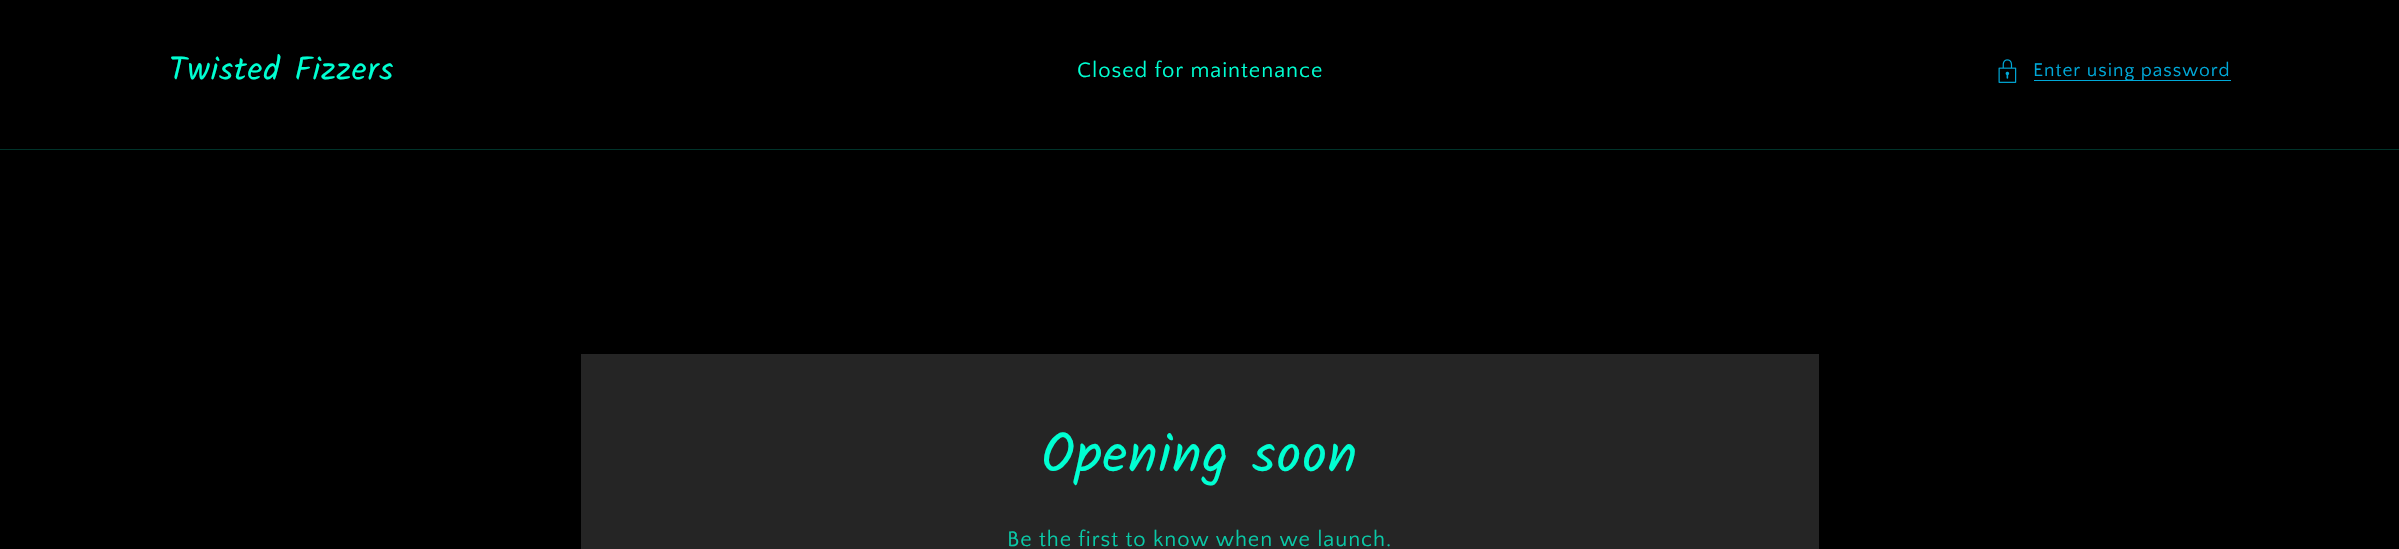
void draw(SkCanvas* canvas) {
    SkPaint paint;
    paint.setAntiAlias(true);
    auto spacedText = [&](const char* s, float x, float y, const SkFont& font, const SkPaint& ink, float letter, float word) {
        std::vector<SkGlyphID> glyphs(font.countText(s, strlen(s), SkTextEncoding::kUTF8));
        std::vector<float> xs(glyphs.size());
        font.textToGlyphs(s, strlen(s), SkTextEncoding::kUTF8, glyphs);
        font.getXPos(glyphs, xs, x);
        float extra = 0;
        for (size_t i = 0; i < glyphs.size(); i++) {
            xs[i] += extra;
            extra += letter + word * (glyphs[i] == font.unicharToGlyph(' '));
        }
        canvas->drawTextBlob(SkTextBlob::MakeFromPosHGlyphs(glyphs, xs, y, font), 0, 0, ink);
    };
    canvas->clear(0xFF000000);
    SkFont font1(fontMgr->matchFamilyStyle("Kalam", SkFontStyle::Normal()), 33);
    font1.setSubpixel(true);
    paint.setColor(0xFF00FFD2);
    spacedText("Twisted Fizzers", 169, 80, font1, paint, 0.8f, 0);
    SkFont font2(fontMgr->matchFamilyStyle("Quattrocento Sans", SkFontStyle::Normal()), 22);
    font2.setSubpixel(true);
    spacedText("Closed for maintenance", 1077, 77, font2, paint, 0.95f, 0);
    canvas->drawImageRect(SkImages::DeferredFromEncodedData(SkData::MakeFromFileName("img1.png")), SkRect::MakeXYWH(1998, 59, 19, 24), SkSamplingOptions());
    paint.setColor(0xFF00A9D9);
    canvas->drawRect(SkRect::MakeXYWH(2034, 80, 197, 1), paint);
    SkFont font3(fontMgr->matchFamilyStyle("Quattrocento Sans", SkFontStyle::Normal()), 19.25f);
    font3.setSubpixel(true);
    spacedText("Enter using password", 2033, 76, font3, paint, 0.95f, 0);
    paint.setColor(0xFF00332A);
    canvas->drawRect(SkRect::MakeXYWH(0, 149, 2399, 1), paint);
    paint.setColor(0xFF252525);
    canvas->drawRect(SkRect::MakeXYWH(581, 354, 1238, 195), paint);
    SkFont font4(fontMgr->matchFamilyStyle("Kalam", SkFontStyle::Normal()), 55);
    font4.setSubpixel(true);
    paint.setColor(0xFF00FFD2);
    spacedText("Opening soon", 1041, 472, font4, paint, 0.8f, 0);
    paint.setColor(0xFF09C9A7);
    spacedText("Be the first to know when we launch.", 1007, 546, font2, paint, 0.95f, 0);
}
